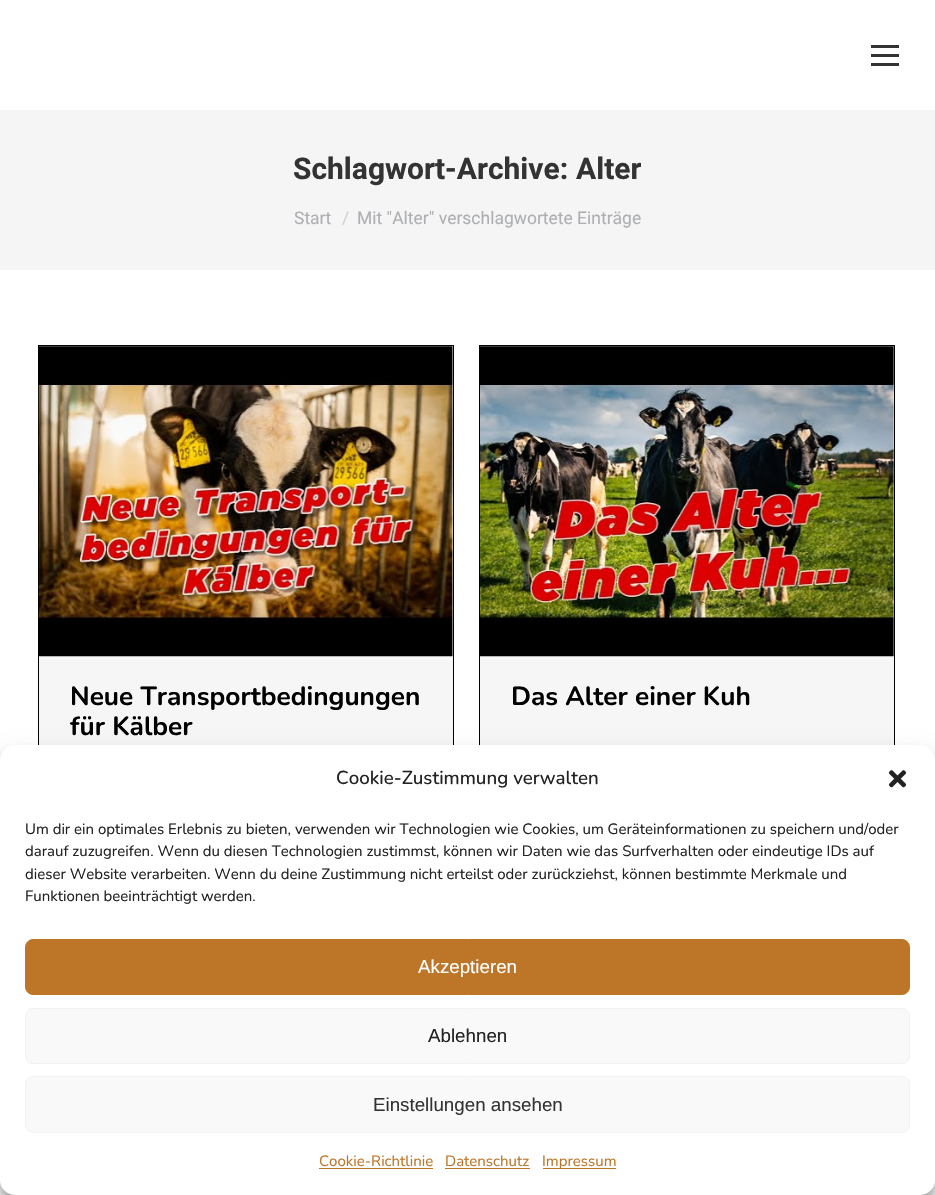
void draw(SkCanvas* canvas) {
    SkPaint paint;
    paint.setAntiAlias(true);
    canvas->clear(0xFFFFFFFF);
    paint.setColor(0xFF333333);
    canvas->drawRect(SkRect::MakeXYWH(871, 45, 28, 3), paint);
    canvas->drawRect(SkRect::MakeXYWH(871, 54, 28, 3), paint);
    canvas->drawRect(SkRect::MakeXYWH(871, 63, 28, 3), paint);
    paint.setColor(0xFFF5F5F5);
    canvas->drawRect(SkRect::MakeXYWH(0, 110, 935, 160), paint);
    SkFont font1(fontMgr->matchFamilyStyle("Roboto", SkFontStyle::Bold()), 30);
    font1.setSubpixel(true);
    paint.setColor(0xFF333333);
    canvas->drawString("Schlagwort-Archive:", 293, 179, font1, paint);
    canvas->save();
    canvas->clipRect(SkRect::MakeXYWH(294, 148, 347, 42));
    canvas->drawString("Alter", 576, 179, font1, paint);
    canvas->restore();
    SkFont font2(fontMgr->matchFamilyStyle("Roboto", SkFontStyle::Normal()), 17.5f);
    font2.setSubpixel(true);
    paint.setColor(0xFFADAFB3);
    canvas->drawString("Start", 294, 224, font2, paint);
    paint.setColor(0xFFD1D2D4);
    canvas->drawString("/", 342, 224, font2, paint);
    paint.setColor(0xFFADAFB3);
    canvas->drawString("Mit \"Alter\" verschlagwortete Einträge", 357, 224, font2, paint);
    paint.setColor(0xFFF6F6F6);
    canvas->drawRect(SkRect::MakeXYWH(39, 346, 414, 399), paint);
    paint.setStyle(SkPaint::kStroke_Style);
    paint.setStrokeWidth(1);
    paint.setColor(0xFF000000);
    canvas->drawRect(SkRect::MakeXYWH(38.5f, 345.5f, 415, 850), paint);
    canvas->drawImageRect(SkImages::DeferredFromEncodedData(SkData::MakeFromFileName("img1.png")), SkRect::MakeXYWH(38, 346, 415, 311), SkSamplingOptions());
    SkFont font3(fontMgr->matchFamilyStyle("Nunito", SkFontStyle::Bold()), 26.25f);
    font3.setSubpixel(true);
    paint.setStyle(SkPaint::kFill_Style);
    canvas->drawString("Neue Transportbedingungen", 70, 705, font3, paint);
    canvas->drawString("für Kälber", 70, 735, font3, paint);
    paint.setColor(0xFFF6F6F6);
    canvas->drawRect(SkRect::MakeXYWH(480, 346, 414, 399), paint);
    paint.setStyle(SkPaint::kStroke_Style);
    paint.setColor(0xFF000000);
    canvas->drawRect(SkRect::MakeXYWH(479.5f, 345.5f, 415, 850), paint);
    canvas->drawImageRect(SkImages::DeferredFromEncodedData(SkData::MakeFromFileName("img2.png")), SkRect::MakeXYWH(480, 346, 414, 311), SkSamplingOptions());
    paint.setStyle(SkPaint::kFill_Style);
    canvas->drawString("Das Alter einer Kuh", 511, 705, font3, paint);
    paint.setColor(0x3B000000);
    paint.setMaskFilter(SkMaskFilter::MakeBlur(kNormal_SkBlurStyle, 4));
    canvas->drawRoundRect(SkRect::MakeXYWH(0, 753, 935, 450), 15, 15, paint);
    paint.setMaskFilter(nullptr);
    paint.setColor(0x30000000);
    paint.setMaskFilter(SkMaskFilter::MakeBlur(kNormal_SkBlurStyle, 12.5f));
    canvas->drawRoundRect(SkRect::MakeXYWH(0, 758, 935, 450), 15, 15, paint);
    paint.setMaskFilter(nullptr);
    paint.setColor(0xFFFFFFFF);
    canvas->drawRoundRect(SkRect::MakeXYWH(0, 745, 935, 450), 15, 15, paint);
    SkFont font4(fontMgr->matchFamilyStyle("Nunito", SkFontStyle(500, SkFontStyle::kNormal_Width, SkFontStyle::kUpright_Slant)), 18.75f);
    font4.setSubpixel(true);
    paint.setColor(0xFF222222);
    canvas->drawString("Cookie-Zustimmung verwalten", 336, 784, font4, paint);
    canvas->drawImageRect(SkImages::DeferredFromEncodedData(SkData::MakeFromFileName("img3.png")), SkRect::MakeXYWH(888, 770, 19, 18), SkSamplingOptions());
    SkFont font5(fontMgr->matchFamilyStyle("Nunito", SkFontStyle::Normal()), 15);
    font5.setSubpixel(true);
    canvas->drawString("Um dir ein optimales Erlebnis zu bieten, verwenden wir Technologien wie Cookies, um Geräteinformationen zu speichern und/oder", 25, 834, font5, paint);
    canvas->drawString("darauf zuzugreifen. Wenn du diesen Technologien zustimmst, können wir Daten wie das Surfverhalten oder eindeutige IDs auf", 25, 856, font5, paint);
    canvas->drawString("dieser Website verarbeiten. Wenn du deine Zustimmung nicht erteilst oder zurückziehst, können bestimmte Merkmale und", 25, 879, font5, paint);
    canvas->drawString("Funktionen beeinträchtigt werden.", 25, 901, font5, paint);
    paint.setColor(0xFFBD7628);
    canvas->drawRoundRect(SkRect::MakeXYWH(25.5f, 939.5f, 884, 55), 7.5f, 7.5f, paint);
    paint.setStyle(SkPaint::kStroke_Style);
    canvas->drawRoundRect(SkRect::MakeXYWH(25.5f, 939.5f, 884, 55), 7.5f, 7.5f, paint);
    SkFont font6(fontMgr->matchFamilyStyle("Liberation Sans", SkFontStyle::Normal()), 18.75f);
    font6.setSubpixel(true);
    paint.setStyle(SkPaint::kFill_Style);
    paint.setColor(0xFFFFFFFF);
    canvas->drawString("Akzeptieren", 418, 973, font6, paint);
    paint.setColor(0xFFF9F9F9);
    canvas->drawRoundRect(SkRect::MakeXYWH(25.5f, 1008.5f, 884, 55), 7.5f, 7.5f, paint);
    paint.setStyle(SkPaint::kStroke_Style);
    paint.setColor(0xFFF2F2F2);
    canvas->drawRoundRect(SkRect::MakeXYWH(25.5f, 1008.5f, 884, 55), 7.5f, 7.5f, paint);
    paint.setStyle(SkPaint::kFill_Style);
    paint.setColor(0xFF222222);
    canvas->drawString("Ablehnen", 428, 1042, font6, paint);
    paint.setColor(0xFFF9F9F9);
    canvas->drawRoundRect(SkRect::MakeXYWH(25.5f, 1076.5f, 884, 56), 7.5f, 7.5f, paint);
    paint.setStyle(SkPaint::kStroke_Style);
    paint.setColor(0xFFF2F2F2);
    canvas->drawRoundRect(SkRect::MakeXYWH(25.5f, 1076.5f, 884, 56), 7.5f, 7.5f, paint);
    paint.setStyle(SkPaint::kFill_Style);
    paint.setColor(0xFF333333);
    canvas->drawString("Einstellungen ansehen", 373, 1111, font6, paint);
    paint.setColor(0xFFBD7628);
    canvas->drawString("Cookie-Richtlinie", 319, 1166, font5, paint);
    canvas->drawRect(SkRect::MakeXYWH(319, 1168, 114, 1), paint);
    canvas->drawString("Datenschutz", 445, 1166, font5, paint);
    canvas->drawRect(SkRect::MakeXYWH(445, 1168, 85, 1), paint);
    canvas->drawRect(SkRect::MakeXYWH(543, 1168, 73, 1), paint);
    canvas->drawString("Impressum", 542, 1166, font5, paint);
}
